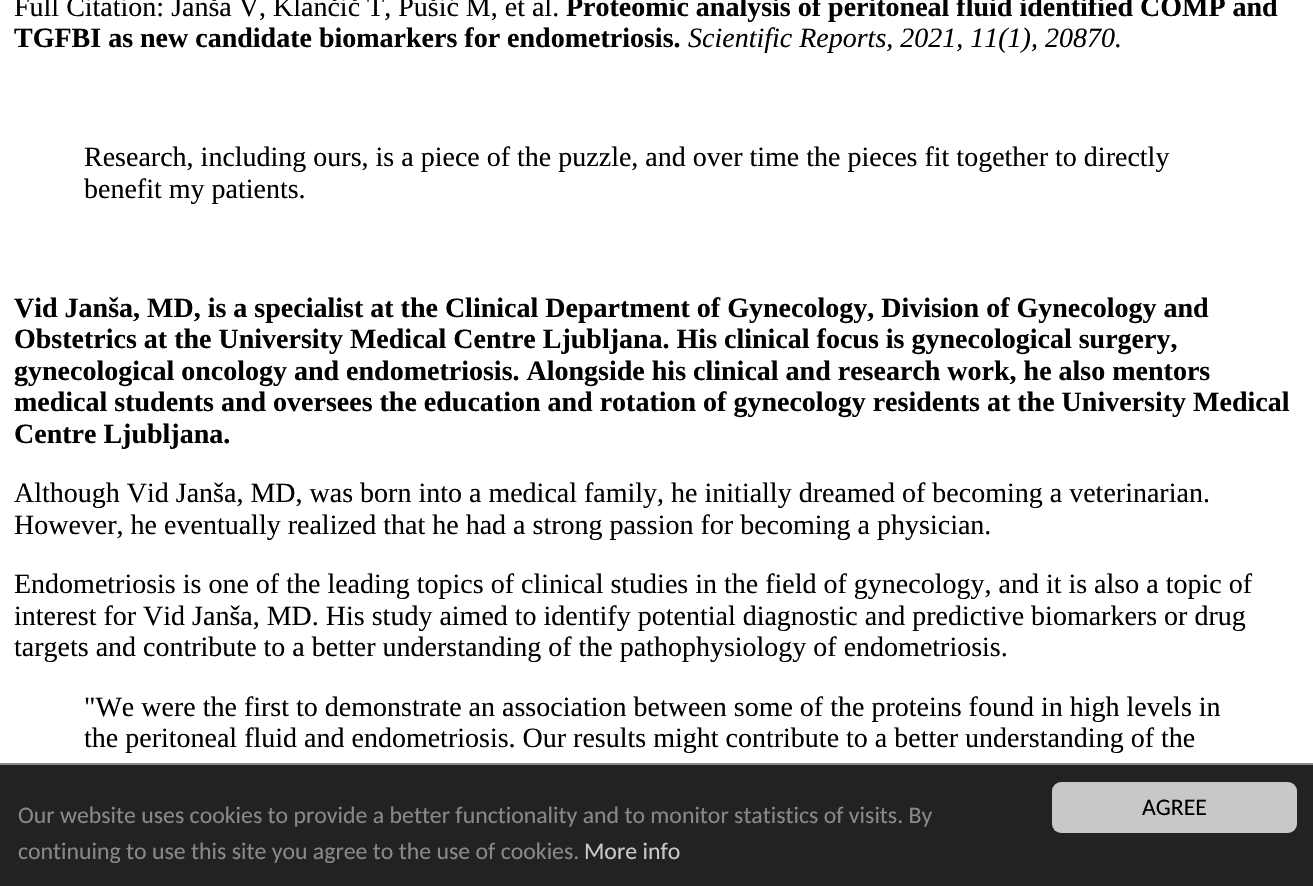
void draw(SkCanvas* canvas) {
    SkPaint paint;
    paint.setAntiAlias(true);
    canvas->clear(0xFFFFFFFF);
    SkFont font1(fontMgr->matchFamilyStyle("Liberation Serif", SkFontStyle::Normal()), 28);
    font1.setSubpixel(true);
    paint.setColor(0xFF000000);
    canvas->drawString("Full Citation: Janša V, Klančič T, Pušić M, et al.", 14, 16, font1, paint);
    SkFont font2(fontMgr->matchFamilyStyle("Liberation Serif", SkFontStyle::Bold()), 28);
    font2.setSubpixel(true);
    canvas->drawString("Proteomic analysis of peritoneal fluid identified COMP and", 566, 16, font2, paint);
    canvas->drawString("TGFBI as new candidate biomarkers for endometriosis.", 14, 47, font2, paint);
    SkFont font3(fontMgr->matchFamilyStyle("Liberation Serif", SkFontStyle::Italic()), 28);
    font3.setSubpixel(true);
    canvas->drawString("Scientific Reports, 2021, 11(1), 20870.", 688, 47, font3, paint);
    canvas->drawString("Research, including ours, is a piece of the puzzle, and over time the pieces fit together to directly", 84, 166, font1, paint);
    canvas->drawString("benefit my patients.", 84, 198, font1, paint);
    canvas->drawString("Vid Janša, MD, is a specialist at the Clinical Department of Gynecology, Division of Gynecology and", 14, 317, font2, paint);
    canvas->drawString("Obstetrics at the University Medical Centre Ljubljana. His clinical focus is gynecological surgery,", 14, 348, font2, paint);
    canvas->drawString("gynecological oncology and endometriosis. Alongside his clinical and research work, he also mentors", 14, 380, font2, paint);
    canvas->drawString("medical students and oversees the education and rotation of gynecology residents at the University Medical", 14, 411, font2, paint);
    canvas->drawString("Centre Ljubljana.", 14, 443, font2, paint);
    canvas->drawString("Although Vid Janša, MD, was born into a medical family, he initially dreamed of becoming a veterinarian.", 14, 502, font1, paint);
    canvas->drawString("However, he eventually realized that he had a strong passion for becoming a physician.", 14, 534, font1, paint);
    canvas->drawString("Endometriosis is one of the leading topics of clinical studies in the field of gynecology, and it is also a topic of", 14, 593, font1, paint);
    canvas->drawString("interest for Vid Janša, MD. His study aimed to identify potential diagnostic and predictive biomarkers or drug", 14, 625, font1, paint);
    canvas->drawString("targets and contribute to a better understanding of the pathophysiology of endometriosis.", 14, 656, font1, paint);
    canvas->drawString("\"We were the first to demonstrate an association between some of the proteins found in high levels in", 84, 716, font1, paint);
    canvas->drawString("the peritoneal fluid and endometriosis. Our results might contribute to a better understanding of the", 84, 747, font1, paint);
    paint.setColor(0xFF222222);
    canvas->drawRect(SkRect::MakeXYWH(0, 765, 1313, 121), paint);
    paint.setColor(0xFF888888);
    canvas->drawRect(SkRect::MakeXYWH(0, 763, 1313, 2), paint);
    SkFont font4(fontMgr->matchFamilyStyle("Carlito", SkFontStyle::Normal()), 23.8f);
    font4.setSubpixel(true);
    canvas->drawString("Our website uses cookies to provide a better functionality and to monitor statistics of visits. By", 18, 823, font4, paint);
    canvas->drawString("continuing to use this site you agree to the use of cookies.", 18, 859, font4, paint);
    paint.setColor(0xFFC8C8C8);
    canvas->drawString("More info", 584, 859, font4, paint);
    canvas->drawRoundRect(SkRect::MakeXYWH(1052, 782, 245, 51), 9, 9, paint);
    paint.setColor(0xFF000000);
    canvas->drawString("AGREE", 1142, 815, font4, paint);
}
